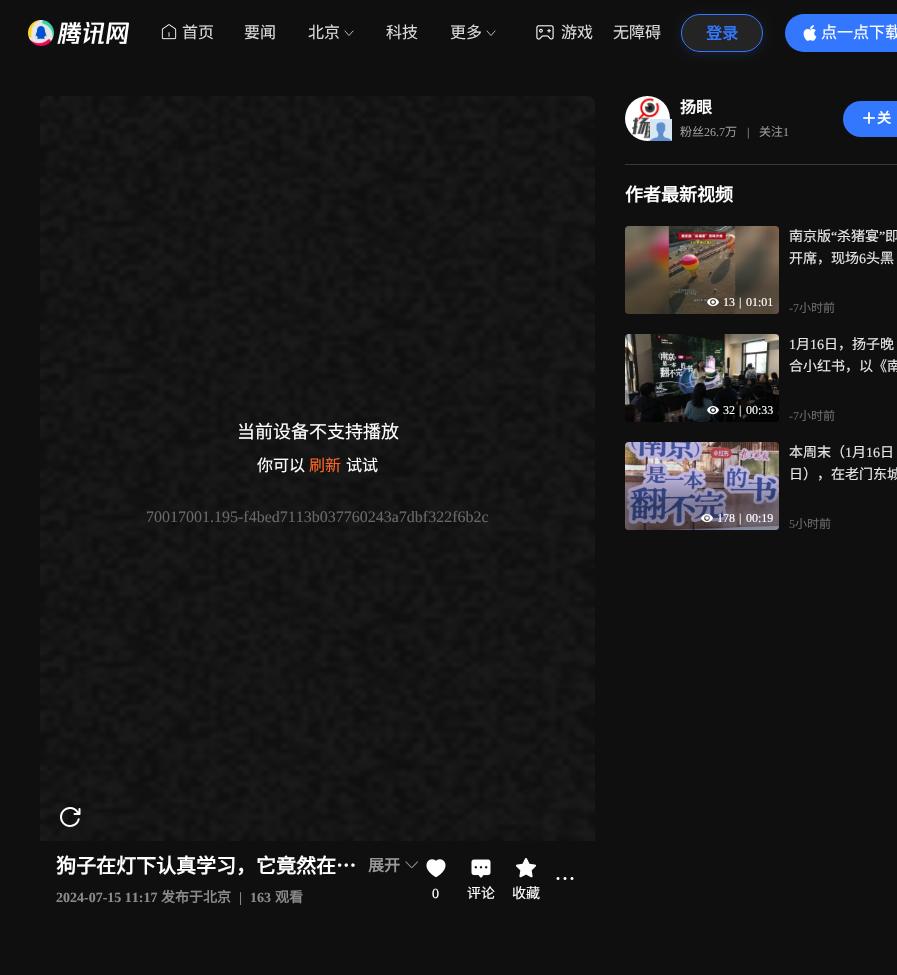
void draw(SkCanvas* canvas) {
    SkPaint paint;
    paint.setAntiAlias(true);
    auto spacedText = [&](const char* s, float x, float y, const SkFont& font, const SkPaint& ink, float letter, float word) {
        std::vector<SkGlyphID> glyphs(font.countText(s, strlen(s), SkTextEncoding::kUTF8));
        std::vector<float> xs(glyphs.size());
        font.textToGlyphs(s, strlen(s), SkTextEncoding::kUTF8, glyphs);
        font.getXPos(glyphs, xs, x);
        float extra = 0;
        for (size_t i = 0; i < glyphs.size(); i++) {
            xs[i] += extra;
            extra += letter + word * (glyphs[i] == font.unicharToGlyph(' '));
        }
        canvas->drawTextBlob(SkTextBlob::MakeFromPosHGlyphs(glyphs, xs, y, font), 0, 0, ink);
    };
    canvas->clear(0xFF0F0F0F);
    canvas->drawImageRect(SkImages::DeferredFromEncodedData(SkData::MakeFromFileName("img1.png")), SkRect::MakeXYWH(28, 20, 101, 26), SkSamplingOptions());
    canvas->drawImageRect(SkImages::DeferredFromEncodedData(SkData::MakeFromFileName("img2.png")), SkRect::MakeXYWH(161, 24, 16, 16), SkSamplingOptions());
    SkFont font1(fontMgr->matchFamilyStyle("Noto Sans CJK SC", SkFontStyle::Normal()), 16);
    font1.setSubpixel(true);
    paint.setColor(0xFFD9D9D9);
    canvas->drawString("首页", 182, 38, font1, paint);
    canvas->drawString("要闻", 244, 38, font1, paint);
    canvas->drawString("北京", 308, 38, font1, paint);
    paint.setStyle(SkPaint::kStroke_Style);
    paint.setStrokeWidth(0.7f);
    paint.setStrokeCap(SkPaint::kRound_Cap);
    paint.setStrokeJoin(SkPaint::kRound_Join);
    paint.setColor(0xFFFFFFFF);
    canvas->drawPath(SkPathBuilder().moveTo(353, 31).lineTo(349, 35.5f).lineTo(345, 31).detach(), paint);
    paint.setStyle(SkPaint::kFill_Style);
    paint.setColor(0xFFD9D9D9);
    canvas->drawString("科技", 386, 38, font1, paint);
    canvas->drawString("更多", 450, 38, font1, paint);
    paint.setStyle(SkPaint::kStroke_Style);
    paint.setColor(0xFFFFFFFF);
    canvas->drawPath(SkPathBuilder().moveTo(495, 31).lineTo(491, 35.5f).lineTo(487, 31).detach(), paint);
    canvas->drawImageRect(SkImages::DeferredFromEncodedData(SkData::MakeFromFileName("img3.png")), SkRect::MakeXYWH(536, 25, 18, 15), SkSamplingOptions());
    paint.setStyle(SkPaint::kFill_Style);
    paint.setColor(0xFFD9D9D9);
    canvas->drawString("游戏", 561, 38, font1, paint);
    canvas->drawString("无障碍", 613, 38, font1, paint);
    canvas->save();
    canvas->clipPath(SkPathBuilder(SkPathFillType::kEvenOdd).moveTo(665, 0).lineTo(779, 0).lineTo(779, 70).lineTo(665, 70).close().moveTo(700, 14).lineTo(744, 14).cubicTo(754.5f, 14, 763, 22.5f, 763, 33).cubicTo(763, 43.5f, 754.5f, 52, 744, 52).lineTo(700, 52).cubicTo(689.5f, 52, 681, 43.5f, 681, 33).cubicTo(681, 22.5f, 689.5f, 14, 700, 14).close().detach(), true);
    paint.setColor(0x293377FF);
    paint.setMaskFilter(SkMaskFilter::MakeBlur(kNormal_SkBlurStyle, 5));
    canvas->drawRoundRect(SkRect::MakeXYWH(681, 16, 82, 38), 19, 19, paint);
    paint.setMaskFilter(nullptr);
    canvas->restore();
    paint.setColor(0x1AD9D9D9);
    canvas->drawRoundRect(SkRect::MakeXYWH(681.5f, 14.5f, 81, 37), 18.5f, 18.5f, paint);
    paint.setStyle(SkPaint::kStroke_Style);
    paint.setStrokeWidth(1);
    paint.setStrokeCap(SkPaint::kButt_Cap);
    paint.setStrokeJoin(SkPaint::kMiter_Join);
    paint.setColor(0xFF3377FF);
    canvas->drawRoundRect(SkRect::MakeXYWH(681.5f, 14.5f, 81, 37), 18.5f, 18.5f, paint);
    SkFont font2(fontMgr->matchFamilyStyle("Noto Sans CJK SC", SkFontStyle::Bold()), 16);
    font2.setSubpixel(true);
    paint.setStyle(SkPaint::kFill_Style);
    canvas->drawString("登录", 706, 39, font2, paint);
    canvas->drawRoundRect(SkRect::MakeXYWH(785, 14, 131, 38), 19, 19, paint);
    canvas->drawImageRect(SkImages::DeferredFromEncodedData(SkData::MakeFromFileName("img4.png")), SkRect::MakeXYWH(803, 25, 14, 16), SkSamplingOptions());
    paint.setColor(0xFFFFFFFF);
    canvas->drawString("点一点下载", 821, 38, font1, paint);
    canvas->drawImageRect(SkImages::DeferredFromEncodedData(SkData::MakeFromFileName("img5.png")), SkRect::MakeXYWH(625, 96, 45, 45), SkSamplingOptions());
    canvas->drawImageRect(SkImages::DeferredFromEncodedData(SkData::MakeFromFileName("img6.png")), SkRect::MakeXYWH(650, 119, 22, 22), SkSamplingOptions());
    canvas->drawString("扬眼", 680, 113, font2, paint);
    SkFont font3(fontMgr->matchFamilyStyle("Noto Sans CJK SC", SkFontStyle::Normal()), 12);
    font3.setSubpixel(true);
    paint.setColor(0xFF999999);
    canvas->drawString("粉丝", 680, 136, font3, paint);
    SkFont font4(fontMgr->matchFamilyStyle("Liberation Serif", SkFontStyle::Normal()), 12);
    font4.setSubpixel(true);
    canvas->drawString("26.7", 704, 136, font4, paint);
    canvas->drawString("万", 725, 136, font3, paint);
    canvas->drawString("|", 747, 136, font4, paint);
    canvas->drawString("关注", 759, 136, font3, paint);
    canvas->drawString("1", 783, 136, font4, paint);
    paint.setColor(0xFF3377FF);
    canvas->drawRoundRect(SkRect::MakeXYWH(843, 101, 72, 36), 18, 18, paint);
    canvas->drawImageRect(SkImages::DeferredFromEncodedData(SkData::MakeFromFileName("img7.png")), SkRect::MakeXYWH(863, 112, 12, 12), SkSamplingOptions());
    SkFont font5(fontMgr->matchFamilyStyle("Noto Sans CJK SC", SkFontStyle::Bold()), 14);
    font5.setSubpixel(true);
    paint.setColor(0xFFFFFFFF);
    canvas->drawString("关", 877, 123, font5, paint);
    paint.setColor(0xFF383838);
    canvas->drawRect(SkRect::MakeXYWH(625, 164, 272, 1), paint);
    SkFont font6(fontMgr->matchFamilyStyle("Noto Sans CJK SC", SkFontStyle::Bold()), 18);
    font6.setSubpixel(true);
    paint.setColor(0xFFFFFFFF);
    canvas->drawString("作者最新视频", 625, 201, font6, paint);
    canvas->drawImageRect(SkImages::DeferredFromEncodedData(SkData::MakeFromFileName("img8.png")), SkRect::MakeXYWH(625, 226, 154, 88), SkSamplingOptions());
    {
        const SkColor colors[] = {0x4D000000, 0x00000000};
        const float stops[] = {0.3f, 0.6f};
        const SkPoint ends[] = {{702, 314}, {702, 226}};
        paint.setShader(SkGradientShader::MakeLinear(ends, colors, stops, 2, SkTileMode::kClamp));
        paint.setAlpha(255);
    }
    canvas->drawRoundRect(SkRect::MakeXYWH(625, 226, 154, 88), 4, 4, paint);
    canvas->drawImageRect(SkImages::DeferredFromEncodedData(SkData::MakeFromFileName("img9.png")), SkRect::MakeXYWH(707, 298, 12, 9), SkSamplingOptions());
    paint.setShader(nullptr);
    paint.setColor(0xFFFFFFFF);
    canvas->drawString("13", 723, 306, font4, paint);
    canvas->drawString("|", 739, 306, font4, paint);
    canvas->drawString("01:01", 746, 306, font4, paint);
    SkFont font7(fontMgr->matchFamilyStyle("Noto Sans CJK SC", SkFontStyle::Normal()), 14);
    font7.setSubpixel(true);
    paint.setColor(0xFFE6E6E6);
    canvas->drawString("南京版", 789, 241, font7, paint);
    SkFont font8(fontMgr->matchFamilyStyle("Liberation Serif", SkFontStyle::Normal()), 14);
    font8.setSubpixel(true);
    canvas->drawString("“", 831, 241, font8, paint);
    canvas->drawString("杀猪宴", 837, 241, font7, paint);
    canvas->drawString("”", 879, 241, font8, paint);
    canvas->drawString("即", 885, 241, font7, paint);
    canvas->drawString("开席，现场", 789, 263, font7, paint);
    canvas->drawString("6", 859, 263, font8, paint);
    canvas->drawString("头黑", 866, 263, font7, paint);
    paint.setColor(0xFF696969);
    canvas->drawString("-7", 789, 312, font4, paint);
    canvas->drawString("小时前", 799, 312, font3, paint);
    canvas->drawImageRect(SkImages::DeferredFromEncodedData(SkData::MakeFromFileName("img10.png")), SkRect::MakeXYWH(625, 334, 154, 88), SkSamplingOptions());
    {
        const SkColor colors[] = {0x4D000000, 0x00000000};
        const float stops[] = {0.3f, 0.6f};
        const SkPoint ends[] = {{702, 422}, {702, 334}};
        paint.setShader(SkGradientShader::MakeLinear(ends, colors, stops, 2, SkTileMode::kClamp));
        paint.setAlpha(255);
    }
    canvas->drawRoundRect(SkRect::MakeXYWH(625, 334, 154, 88), 4, 4, paint);
    canvas->drawImageRect(SkImages::DeferredFromEncodedData(SkData::MakeFromFileName("img11.png")), SkRect::MakeXYWH(707, 406, 12, 9), SkSamplingOptions());
    paint.setShader(nullptr);
    paint.setColor(0xFFFFFFFF);
    canvas->drawString("32", 723, 414, font4, paint);
    canvas->drawString("|", 739, 414, font4, paint);
    canvas->drawString("00:33", 746, 414, font4, paint);
    paint.setColor(0xFFE6E6E6);
    canvas->drawString("1", 789, 349, font8, paint);
    canvas->drawString("月", 796, 349, font7, paint);
    canvas->drawString("16", 810, 349, font8, paint);
    canvas->drawString("日，扬子晚", 824, 349, font7, paint);
    canvas->drawString("合小红书，以《南", 789, 371, font7, paint);
    paint.setColor(0xFF696969);
    canvas->drawString("-7", 789, 420, font4, paint);
    canvas->drawString("小时前", 799, 420, font3, paint);
    canvas->drawImageRect(SkImages::DeferredFromEncodedData(SkData::MakeFromFileName("img12.png")), SkRect::MakeXYWH(625, 442, 154, 88), SkSamplingOptions());
    {
        const SkColor colors[] = {0x4D000000, 0x00000000};
        const float stops[] = {0.3f, 0.6f};
        const SkPoint ends[] = {{702, 530}, {702, 442}};
        paint.setShader(SkGradientShader::MakeLinear(ends, colors, stops, 2, SkTileMode::kClamp));
        paint.setAlpha(255);
    }
    canvas->drawRoundRect(SkRect::MakeXYWH(625, 442, 154, 88), 4, 4, paint);
    canvas->drawImageRect(SkImages::DeferredFromEncodedData(SkData::MakeFromFileName("img13.png")), SkRect::MakeXYWH(701, 514, 12, 9), SkSamplingOptions());
    paint.setShader(nullptr);
    paint.setColor(0xFFFFFFFF);
    canvas->drawString("178", 717, 522, font4, paint);
    canvas->drawString("|", 739, 522, font4, paint);
    canvas->drawString("00:19", 746, 522, font4, paint);
    paint.setColor(0xFFE6E6E6);
    canvas->drawString("本周末（", 789, 457, font7, paint);
    canvas->drawString("1", 845, 457, font8, paint);
    canvas->drawString("月", 852, 457, font7, paint);
    canvas->drawString("16", 866, 457, font8, paint);
    canvas->drawString("日", 880, 457, font7, paint);
    canvas->drawString("日），在老门东城", 789, 479, font7, paint);
    paint.setColor(0xFF696969);
    canvas->drawString("5", 789, 528, font4, paint);
    canvas->drawString("小时前", 795, 528, font3, paint);
    canvas->drawImageRect(SkImages::DeferredFromEncodedData(SkData::MakeFromFileName("img14.png")), SkRect::MakeXYWH(40, 96, 555, 745), SkSamplingOptions());
    SkFont font9(fontMgr->matchFamilyStyle("Noto Sans CJK SC", SkFontStyle::Normal()), 18);
    font9.setSubpixel(true);
    paint.setColor(0xFFFFFFFF);
    canvas->drawString("当前设备不支持播放", 237, 438, font9, paint);
    canvas->drawString("你可以", 257, 471, font1, paint);
    paint.setColor(0xFFFC6526);
    canvas->drawString("刷新", 309, 471, font1, paint);
    paint.setColor(0xFFFFFFFF);
    canvas->drawString("试试", 346, 471, font1, paint);
    SkFont font10(fontMgr->matchFamilyStyle("Liberation Serif", SkFontStyle::Normal()), 16);
    font10.setSubpixel(true);
    paint.setColor(0xFF696969);
    canvas->drawString("70017001.195-f4bed7113b037760243a7dbf322f6b2c", 146, 522, font10, paint);
    SkFont font11(fontMgr->matchFamilyStyle("Noto Sans CJK SC", SkFontStyle::Bold()), 20);
    font11.setSubpixel(true);
    paint.setColor(0xFFFFFFFF);
    spacedText("狗子在灯下认真学习，它竟然在…", 56, 873, font11, paint, 0, 1);
    paint.setColor(0xFF999999);
    canvas->drawString("展开", 368, 871, font2, paint);
    canvas->drawImageRect(SkImages::DeferredFromEncodedData(SkData::MakeFromFileName("img15.png")), SkRect::MakeXYWH(405, 861, 13, 7), SkSamplingOptions());
    SkFont font12(fontMgr->matchFamilyStyle("Liberation Serif", SkFontStyle::Bold()), 14);
    font12.setSubpixel(true);
    paint.setColor(0xFF8B8B8B);
    canvas->drawString("2024-07-15 11:17", 56, 902, font12, paint);
    canvas->drawString("发布于北京", 161, 902, font5, paint);
    canvas->drawString("|", 239, 902, font12, paint);
    canvas->drawString("163", 250, 902, font12, paint);
    canvas->drawString("观看", 275, 902, font5, paint);
    canvas->drawImageRect(SkImages::DeferredFromEncodedData(SkData::MakeFromFileName("img16.png")), SkRect::MakeXYWH(556, 877, 18, 3), SkSamplingOptions());
    canvas->drawImageRect(SkImages::DeferredFromEncodedData(SkData::MakeFromFileName("img17.png")), SkRect::MakeXYWH(426, 859, 20, 19), SkSamplingOptions());
    paint.setColor(0xFFFFFFFF);
    canvas->drawString("0", 432, 898, font8, paint);
    canvas->drawImageRect(SkImages::DeferredFromEncodedData(SkData::MakeFromFileName("img18.png")), SkRect::MakeXYWH(471, 859, 20, 19), SkSamplingOptions());
    canvas->drawString("评论", 467, 898, font7, paint);
    canvas->drawImageRect(SkImages::DeferredFromEncodedData(SkData::MakeFromFileName("img19.png")), SkRect::MakeXYWH(516, 858, 20, 20), SkSamplingOptions());
    canvas->drawString("收藏", 512, 898, font7, paint);
}
